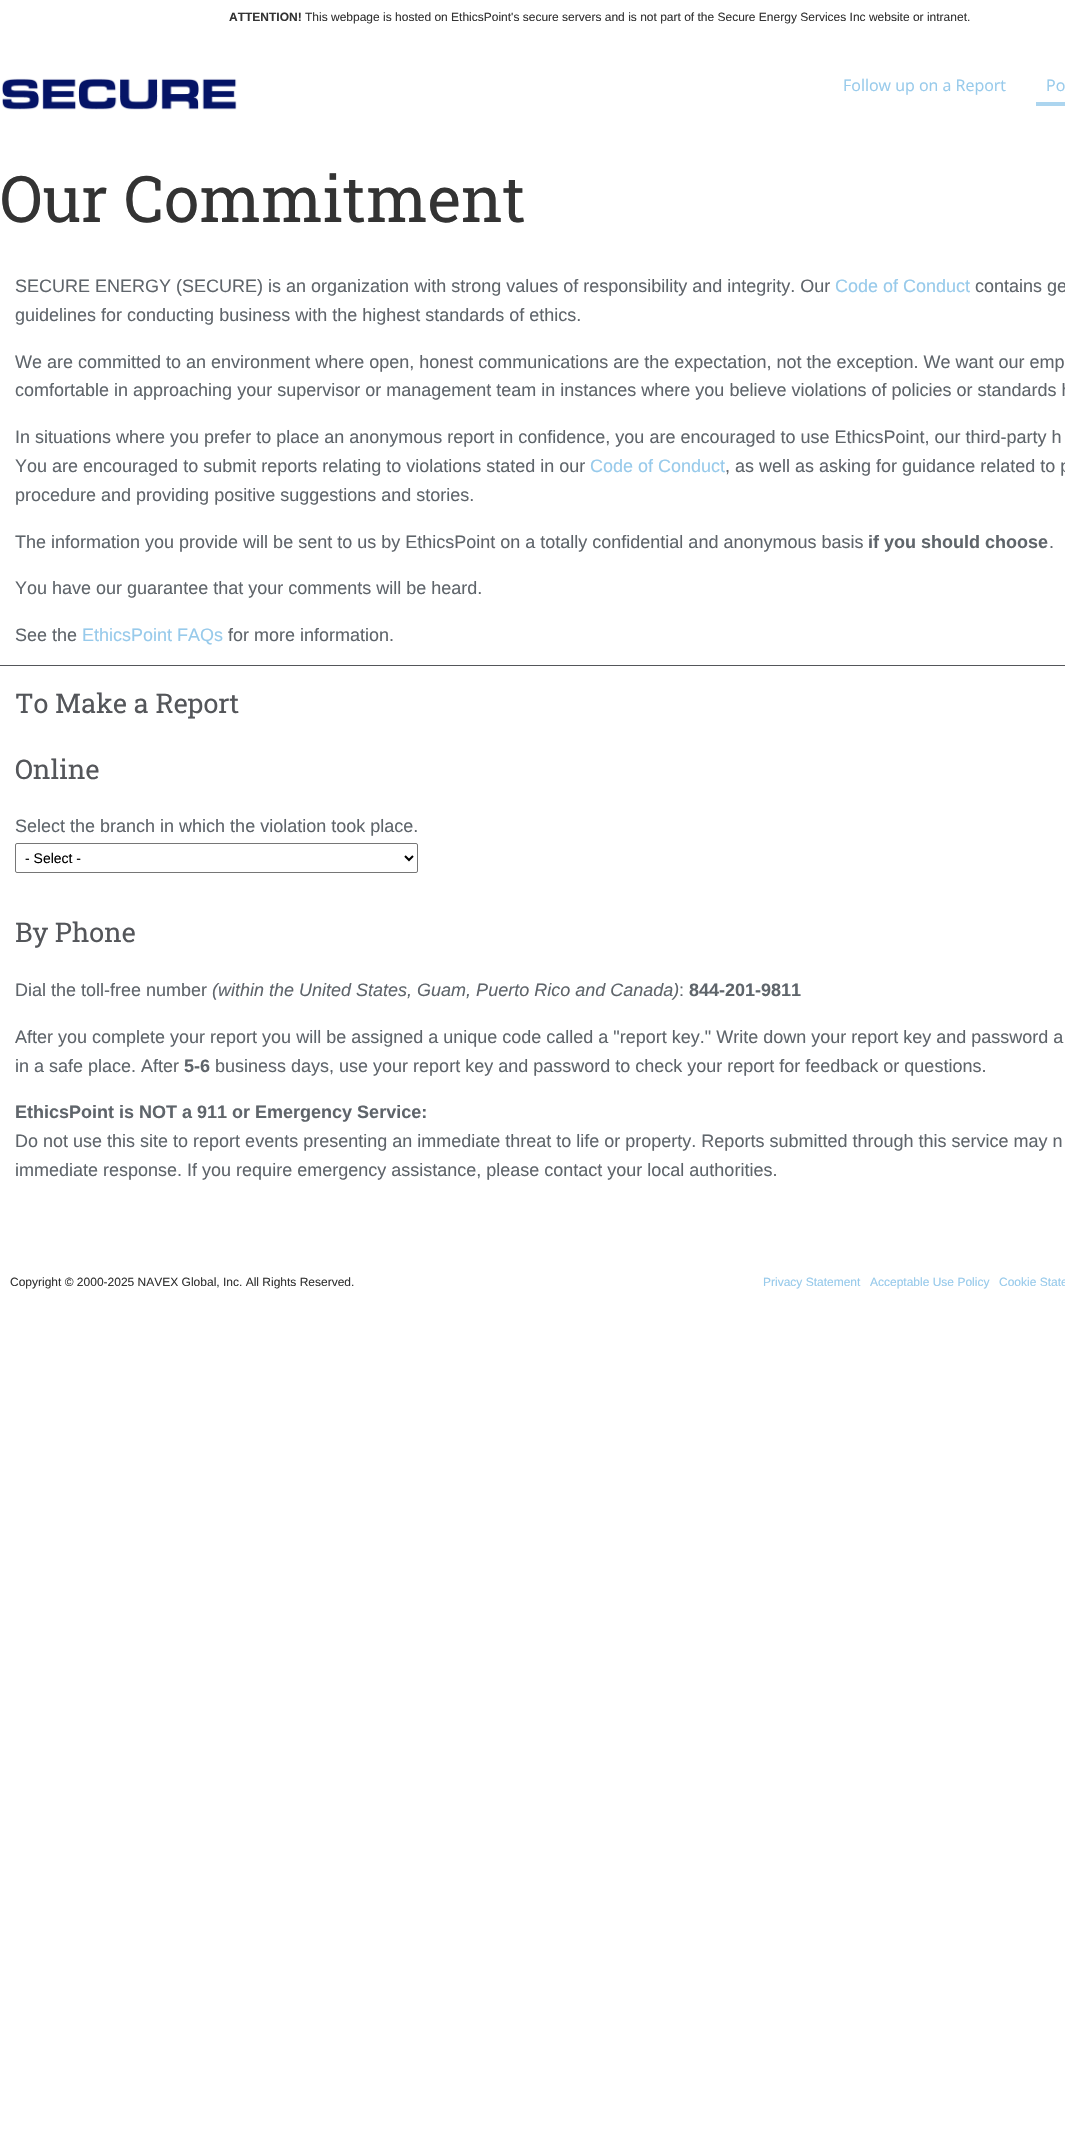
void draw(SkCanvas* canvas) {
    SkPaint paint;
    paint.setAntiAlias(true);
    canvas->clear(0xFFFFFFFF);
    SkFont font1(fontMgr->matchFamilyStyle("Liberation Sans", SkFontStyle::Bold()), 12);
    font1.setSubpixel(true);
    paint.setColor(0xFF333333);
    canvas->drawString("ATTENTION!", 229, 21, font1, paint);
    SkFont font2(fontMgr->matchFamilyStyle("Liberation Sans", SkFontStyle::Normal()), 12);
    font2.setSubpixel(true);
    canvas->drawString("This webpage is hosted on EthicsPoint's secure servers and is not part of the Secure Energy Services Inc website or intranet.", 305, 21, font2, paint);
    canvas->drawImageRect(SkImages::DeferredFromEncodedData(SkData::MakeFromFileName("img1.png")), SkRect::MakeXYWH(2, 78, 235, 32), SkSamplingOptions());
    SkFont font3(fontMgr->matchFamilyStyle("Open Sans", SkFontStyle::Normal()), 16);
    font3.setSubpixel(true);
    paint.setColor(0xFF97CAEB);
    canvas->drawString("Follow up on a Report", 843, 91, font3, paint);
    canvas->drawString("Po", 1046, 91, font3, paint);
    paint.setColor(0xFFACD5EF);
    canvas->drawRect(SkRect::MakeXYWH(1036, 102, 29, 4), paint);
    SkFont font4(fontMgr->matchFamilyStyle("Roboto Slab", SkFontStyle::Normal()), 64);
    font4.setSubpixel(true);
    paint.setColor(0xFF333333);
    canvas->drawString("Our Commitment", 0, 222, font4, paint);
    paint.setColor(0xFF54565A);
    canvas->drawRect(SkRect::MakeXYWH(0, 665, 1065, 1), paint);
    SkFont font5(fontMgr->matchFamilyStyle("Liberation Sans", SkFontStyle::Normal()), 18);
    font5.setSubpixel(true);
    paint.setColor(0xFF5F656B);
    canvas->drawString("SECURE ENERGY (SECURE) is an organization with strong values of responsibility and integrity. Our", 15, 292, font5, paint);
    paint.setColor(0xFF97CAEB);
    canvas->drawString("Code of Conduct", 835, 292, font5, paint);
    paint.setColor(0xFF5F656B);
    canvas->drawString("contains ge", 975, 292, font5, paint);
    canvas->drawString("guidelines for conducting business with the highest standards of ethics.", 15, 321, font5, paint);
    canvas->drawString("We are committed to an environment where open, honest communications are the expectation, not the exception. We want our emp", 15, 368, font5, paint);
    canvas->drawString("comfortable in approaching your supervisor or management team in instances where you believe violations of policies or standards h", 15, 396, font5, paint);
    canvas->drawString("In situations where you prefer to place an anonymous report in confidence, you are encouraged to use EthicsPoint, our third-party h", 15, 443, font5, paint);
    canvas->drawString("You are encouraged to submit reports relating to violations stated in our", 15, 472, font5, paint);
    paint.setColor(0xFF97CAEB);
    canvas->drawString("Code of Conduct", 590, 472, font5, paint);
    paint.setColor(0xFF5F656B);
    canvas->drawString(", as well as asking for guidance related to p", 725, 472, font5, paint);
    canvas->drawString("procedure and providing positive suggestions and stories.", 15, 501, font5, paint);
    canvas->drawString("The information you provide will be sent to us by EthicsPoint on a totally confidential and anonymous basis", 15, 548, font5, paint);
    SkFont font6(fontMgr->matchFamilyStyle("Liberation Sans", SkFontStyle::Bold()), 18);
    font6.setSubpixel(true);
    canvas->drawString("if you should choose", 868, 548, font6, paint);
    canvas->drawString(".", 1049, 548, font5, paint);
    canvas->drawString("You have our guarantee that your comments will be heard.", 15, 594, font5, paint);
    canvas->drawString("See the", 15, 641, font5, paint);
    paint.setColor(0xFF97CAEB);
    canvas->drawString("EthicsPoint FAQs", 82, 641, font5, paint);
    paint.setColor(0xFF5F656B);
    canvas->drawString("for more information.", 228, 641, font5, paint);
    SkFont font7(fontMgr->matchFamilyStyle("Roboto Slab", SkFontStyle::Normal()), 27);
    font7.setSubpixel(true);
    paint.setColor(0xFF54565A);
    canvas->drawString("To Make a Report", 15, 713, font7, paint);
    canvas->drawString("Online", 15, 779, font7, paint);
    paint.setColor(0xFF5F656B);
    canvas->drawString("Select the branch in which the violation took place.", 15, 832, font5, paint);
    paint.setStyle(SkPaint::kStroke_Style);
    paint.setStrokeWidth(1);
    paint.setColor(0xFF767676);
    canvas->drawRoundRect(SkRect::MakeXYWH(15.5f, 843.5f, 402, 29), 1.5f, 1.5f, paint);
    paint.setStrokeWidth(2);
    paint.setColor(0xFF000000);
    canvas->drawPath(SkPathBuilder().moveTo(405, 856).lineTo(409, 860).lineTo(413, 856).detach(), paint);
    SkFont font8(fontMgr->matchFamilyStyle("Liberation Sans", SkFontStyle::Normal()), 14);
    font8.setSubpixel(true);
    paint.setStyle(SkPaint::kFill_Style);
    canvas->drawString("- Select -", 25, 863, font8, paint);
    paint.setColor(0xFF54565A);
    canvas->drawString("By Phone", 15, 942, font7, paint);
    paint.setColor(0xFF5F656B);
    canvas->drawString("Dial the toll-free number", 15, 996, font5, paint);
    SkFont font9(fontMgr->matchFamilyStyle("Liberation Sans", SkFontStyle::Italic()), 18);
    font9.setSubpixel(true);
    canvas->drawString("(within the United States, Guam, Puerto Rico and Canada)", 212, 996, font9, paint);
    canvas->drawString(":", 679, 996, font5, paint);
    canvas->drawString("844-201-9811", 689, 996, font6, paint);
    canvas->drawString("After you complete your report you will be assigned a unique code called a \"report key.\" Write down your report key and password a", 15, 1043, font5, paint);
    canvas->drawString("in a safe place. After", 15, 1072, font5, paint);
    canvas->drawString("5-6", 184, 1072, font6, paint);
    canvas->drawString("business days, use your report key and password to check your report for feedback or questions.", 215, 1072, font5, paint);
    canvas->drawString("EthicsPoint is NOT a 911 or Emergency Service:", 15, 1118, font6, paint);
    canvas->drawString("Do not use this site to report events presenting an immediate threat to life or property. Reports submitted through this service may n", 15, 1147, font5, paint);
    canvas->drawString("immediate response. If you require emergency assistance, please contact your local authorities.", 15, 1176, font5, paint);
    paint.setColor(0xFF333333);
    canvas->drawString("Copyright © 2000-2025 NAVEX Global, Inc. All Rights Reserved.", 10, 1286, font2, paint);
    paint.setColor(0xFF97CAEB);
    canvas->drawString("Privacy Statement", 763, 1286, font2, paint);
    canvas->drawString("Acceptable Use Policy", 870, 1286, font2, paint);
    canvas->drawString("Cookie State", 999, 1286, font2, paint);
}
